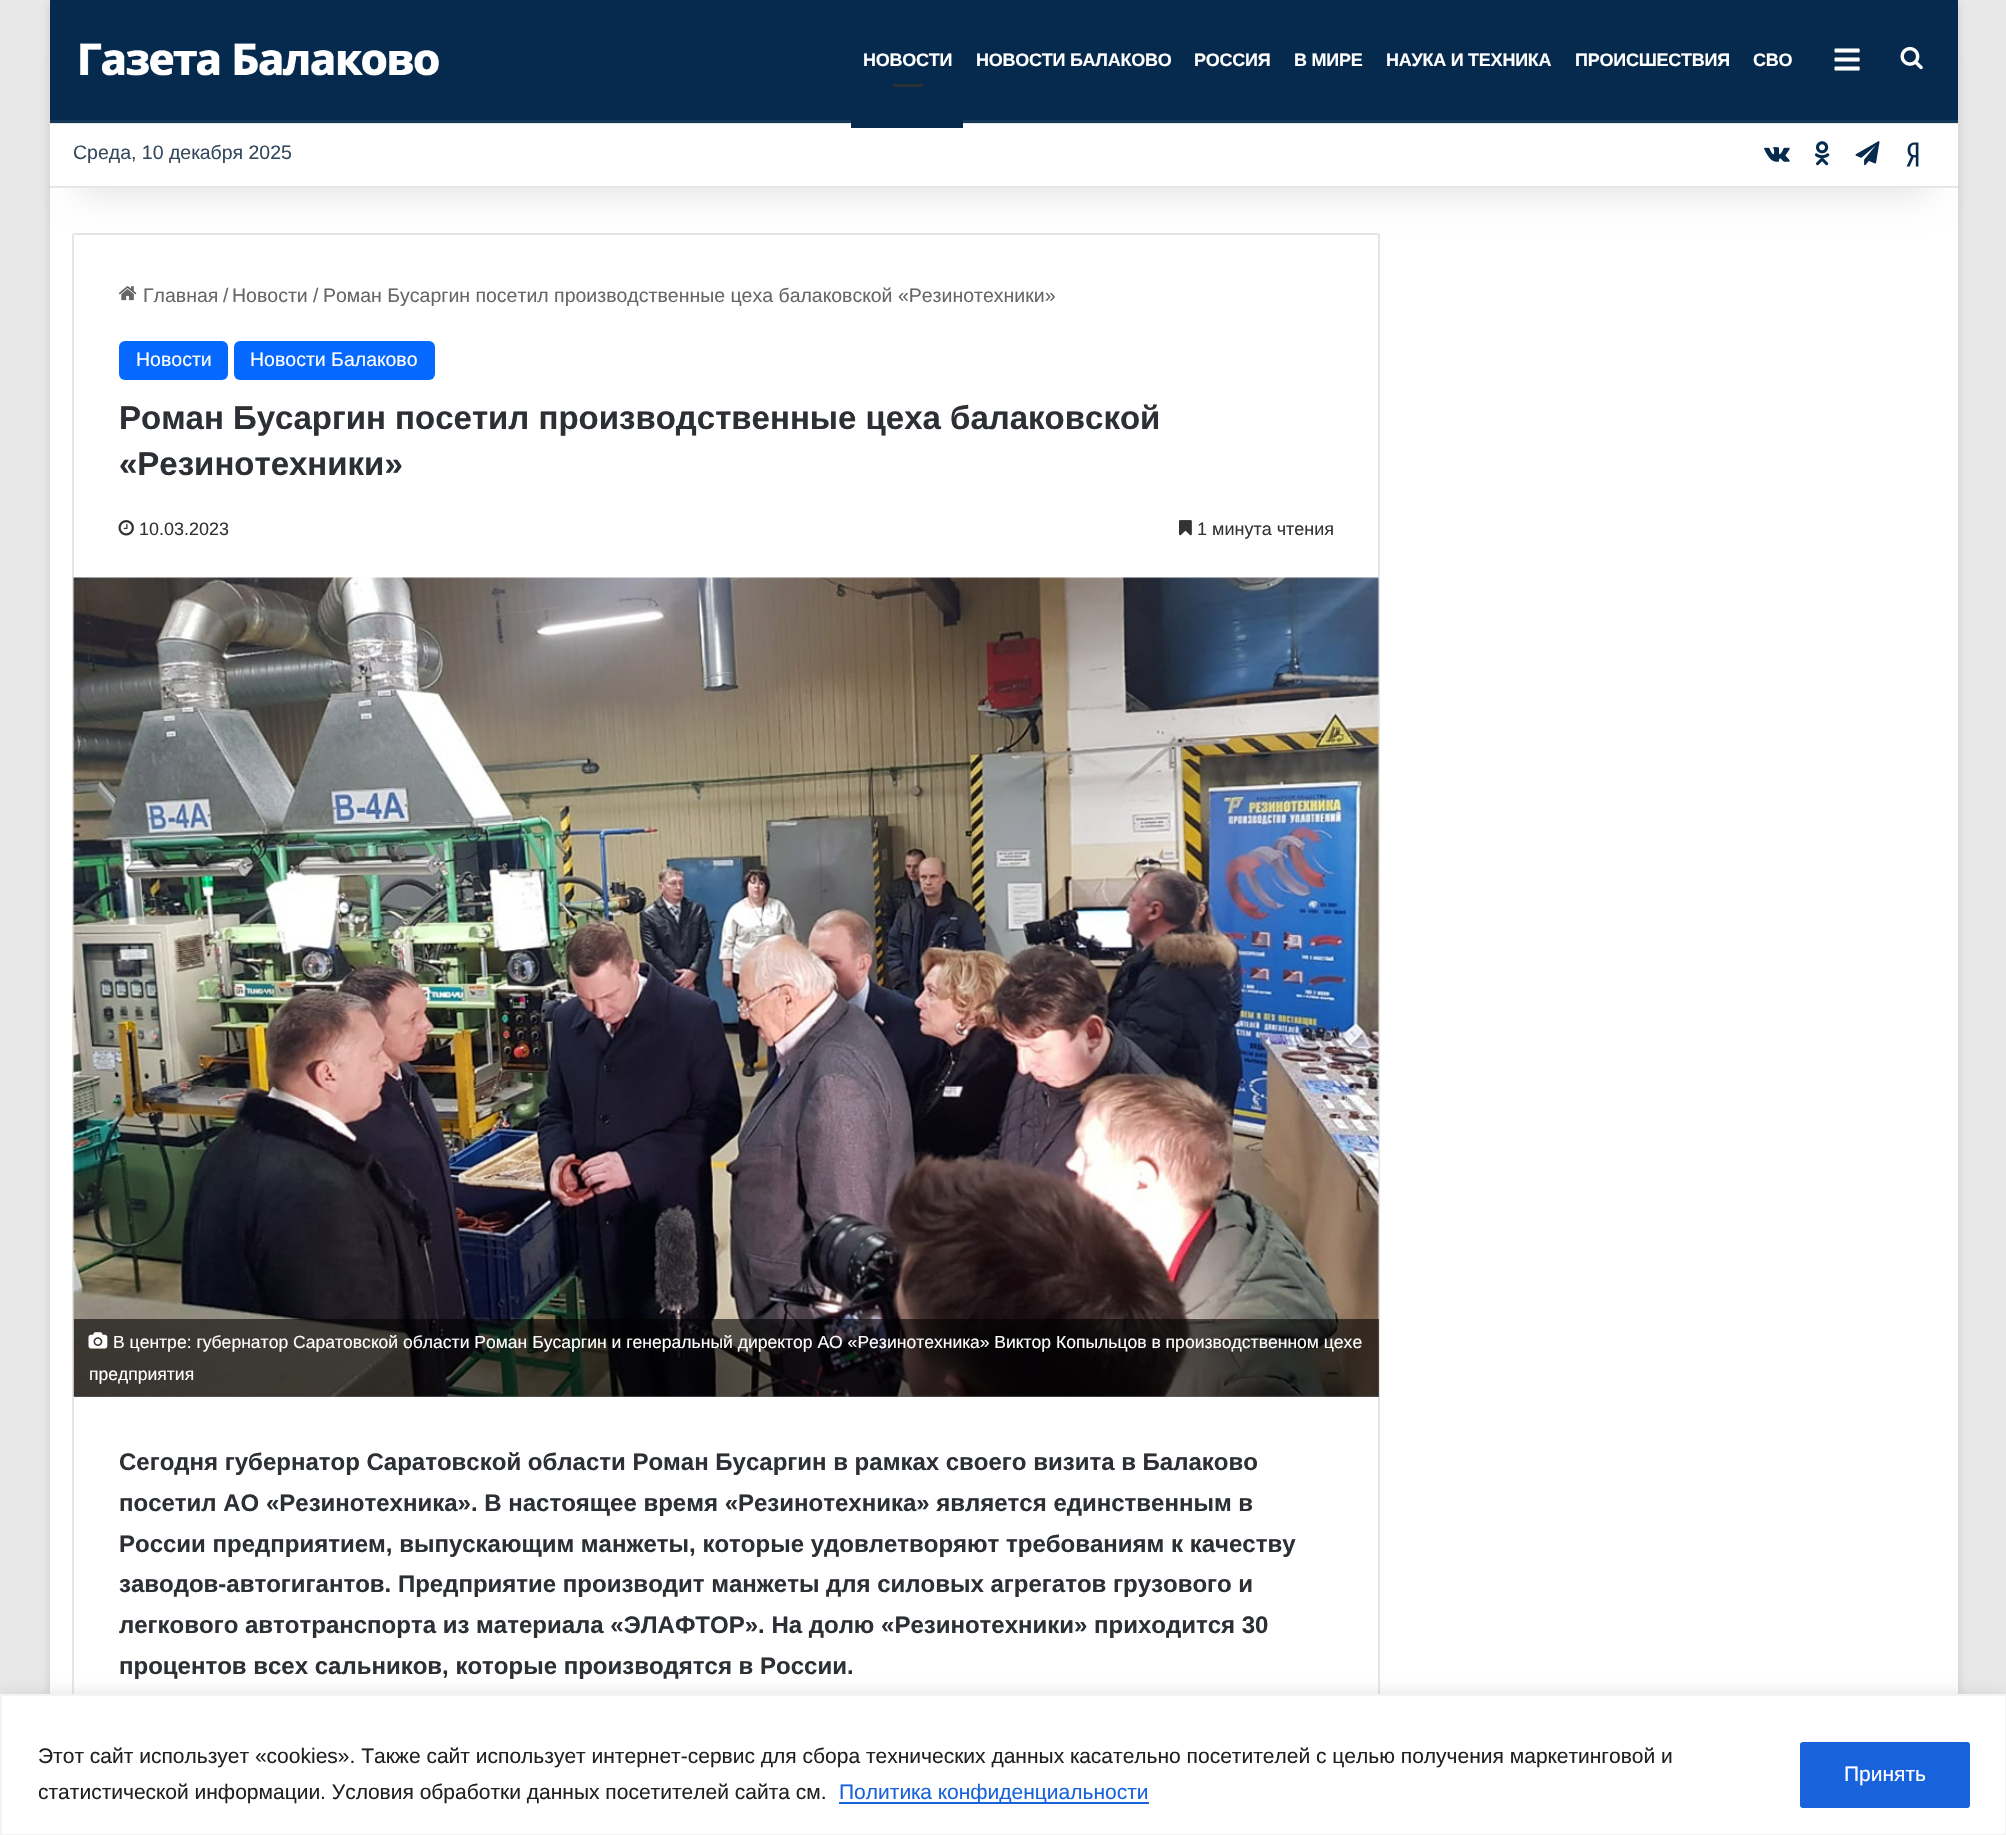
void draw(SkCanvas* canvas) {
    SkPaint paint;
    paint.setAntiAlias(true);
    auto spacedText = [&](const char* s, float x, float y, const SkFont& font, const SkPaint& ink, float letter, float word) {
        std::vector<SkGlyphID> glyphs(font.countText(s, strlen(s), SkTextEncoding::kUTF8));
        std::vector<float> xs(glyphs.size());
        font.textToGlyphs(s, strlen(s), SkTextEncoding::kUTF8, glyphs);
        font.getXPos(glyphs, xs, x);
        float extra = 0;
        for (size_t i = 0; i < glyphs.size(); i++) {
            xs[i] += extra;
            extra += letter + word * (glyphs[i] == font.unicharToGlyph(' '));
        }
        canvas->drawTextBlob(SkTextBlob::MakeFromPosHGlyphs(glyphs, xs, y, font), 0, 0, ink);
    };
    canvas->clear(0xFFE8E8E8);
    paint.setColor(0x80ABABAB);
    paint.setMaskFilter(SkMaskFilter::MakeBlur(kNormal_SkBlurStyle, 5));
    canvas->drawRect(SkRect::MakeXYWH(50, 2, 1908, 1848), paint);
    paint.setMaskFilter(nullptr);
    paint.setColor(0xFFFFFFFF);
    canvas->drawRect(SkRect::MakeXYWH(50, 188, 1908, 1506), paint);
    paint.setStyle(SkPaint::kStroke_Style);
    paint.setStrokeWidth(2);
    paint.setColor(0xFFE5E5E5);
    canvas->drawRoundRect(SkRect::MakeXYWH(73, 234, 1306, 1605), 2, 2, paint);
    paint.setStyle(SkPaint::kFill_Style);
    paint.setColor(0x1A000000);
    paint.setMaskFilter(SkMaskFilter::MakeBlur(kNormal_SkBlurStyle, 15));
    canvas->drawRect(SkRect::MakeXYWH(80, 68, 1848, 127), paint);
    paint.setMaskFilter(nullptr);
    paint.setColor(0xFFFFFFFF);
    canvas->drawRect(SkRect::MakeXYWH(50, 124, 1908, 62), paint);
    paint.setColor(0xFF062A4D);
    canvas->drawRect(SkRect::MakeXYWH(50, 0, 1908, 120), paint);
    paint.setColor(0xFF173959);
    canvas->drawRect(SkRect::MakeXYWH(50, 120, 1908, 3), paint);
    canvas->drawImageRect(SkImages::DeferredFromEncodedData(SkData::MakeFromFileName("img1.png")), SkRect::MakeXYWH(80, 43, 359, 33), SkSamplingOptions());
    paint.setColor(0xFFE6E6E6);
    canvas->drawRect(SkRect::MakeXYWH(50, 123, 1908, 1), paint);
    paint.setColor(0xFF062A4D);
    canvas->drawRect(SkRect::MakeXYWH(851, 120, 112, 8), paint);
    SkFont font1(fontMgr->matchFamilyStyle("Liberation Sans", SkFontStyle::Bold()), 18);
    font1.setSubpixel(true);
    paint.setColor(0xFFFFFFFF);
    spacedText("НОВОСТИ", 863, 66, font1, paint, -0.25f, 0);
    paint.setColor(0xFF2C2F34);
    canvas->drawRect(SkRect::MakeXYWH(893, 84, 30, 3), paint);
    paint.setColor(0xFFFFFFFF);
    spacedText("НОВОСТИ БАЛАКОВО", 976, 66, font1, paint, -0.25f, 0);
    spacedText("РОССИЯ", 1194, 66, font1, paint, -0.25f, 0);
    spacedText("В МИРЕ", 1294, 66, font1, paint, -0.25f, 0);
    spacedText("НАУКА И ТЕХНИКА", 1386, 66, font1, paint, -0.25f, 0);
    spacedText("ПРОИСШЕСТВИЯ", 1575, 66, font1, paint, -0.25f, 0);
    spacedText("СВО", 1753, 66, font1, paint, -0.25f, 0);
    canvas->drawImageRect(SkImages::DeferredFromEncodedData(SkData::MakeFromFileName("img2.png")), SkRect::MakeXYWH(1834, 48, 26, 23), SkSamplingOptions());
    canvas->drawImageRect(SkImages::DeferredFromEncodedData(SkData::MakeFromFileName("img3.png")), SkRect::MakeXYWH(1900, 46, 23, 24), SkSamplingOptions());
    paint.setColor(0xFFE6E6E6);
    canvas->drawRect(SkRect::MakeXYWH(50, 186, 1908, 2), paint);
    SkFont font2(fontMgr->matchFamilyStyle("Liberation Sans", SkFontStyle::Normal()), 19.5f);
    font2.setSubpixel(true);
    paint.setColor(0xFF34495E);
    canvas->drawString("Среда, 10 декабря 2025", 73, 159, font2, paint);
    canvas->drawImageRect(SkImages::DeferredFromEncodedData(SkData::MakeFromFileName("img4.png")), SkRect::MakeXYWH(1764, 147, 26, 15), SkSamplingOptions());
    canvas->drawImageRect(SkImages::DeferredFromEncodedData(SkData::MakeFromFileName("img5.png")), SkRect::MakeXYWH(1814, 141, 16, 25), SkSamplingOptions());
    canvas->drawImageRect(SkImages::DeferredFromEncodedData(SkData::MakeFromFileName("img6.png")), SkRect::MakeXYWH(1855, 141, 25, 25), SkSamplingOptions());
    canvas->drawImageRect(SkImages::DeferredFromEncodedData(SkData::MakeFromFileName("img7.png")), SkRect::MakeXYWH(1906, 142, 13, 25), SkSamplingOptions());
    canvas->drawImageRect(SkImages::DeferredFromEncodedData(SkData::MakeFromFileName("img8.png")), SkRect::MakeXYWH(118, 286, 19, 15), SkSamplingOptions());
    paint.setColor(0xFF666666);
    canvas->drawString("Главная", 143, 302, font2, paint);
    canvas->drawString("/", 223, 302, font2, paint);
    canvas->drawString("Новости", 232, 302, font2, paint);
    canvas->drawString("/", 313, 302, font2, paint);
    canvas->drawString("Роман Бусаргин посетил производственные цеха балаковской «Резинотехники»", 323, 302, font2, paint);
    paint.setColor(0xFF0669FF);
    canvas->drawRoundRect(SkRect::MakeXYWH(119, 341, 109, 39), 6, 6, paint);
    paint.setColor(0xFFFFFFFF);
    canvas->drawString("Новости", 136, 366, font2, paint);
    paint.setColor(0xFF0669FF);
    canvas->drawRoundRect(SkRect::MakeXYWH(234, 341, 201, 39), 6, 6, paint);
    paint.setColor(0xFFFFFFFF);
    canvas->drawString("Новости Балаково", 250, 366, font2, paint);
    SkFont font3(fontMgr->matchFamilyStyle("Liberation Sans", SkFontStyle::Bold()), 33);
    font3.setSubpixel(true);
    paint.setColor(0xFF2C2F34);
    canvas->drawString("Роман Бусаргин посетил производственные цеха балаковской", 119, 429, font3, paint);
    canvas->drawString("«Резинотехники»", 119, 475, font3, paint);
    canvas->drawImageRect(SkImages::DeferredFromEncodedData(SkData::MakeFromFileName("img9.png")), SkRect::MakeXYWH(118, 520, 16, 16), SkSamplingOptions());
    SkFont font4(fontMgr->matchFamilyStyle("Liberation Sans", SkFontStyle::Normal()), 18);
    font4.setSubpixel(true);
    paint.setColor(0xFF333333);
    canvas->drawString("10.03.2023", 139, 535, font4, paint);
    canvas->drawImageRect(SkImages::DeferredFromEncodedData(SkData::MakeFromFileName("img10.png")), SkRect::MakeXYWH(1179, 520, 13, 16), SkSamplingOptions());
    canvas->drawString("1 минута чтения", 1197, 535, font4, paint);
    canvas->drawImageRect(SkImages::DeferredFromEncodedData(SkData::MakeFromFileName("img11.png")), SkRect::MakeXYWH(73, 577, 1306, 820), SkSamplingOptions());
    paint.setColor(0x99000000);
    canvas->drawRect(SkRect::MakeXYWH(74, 1319, 1305, 78), paint);
    canvas->drawImageRect(SkImages::DeferredFromEncodedData(SkData::MakeFromFileName("img12.png")), SkRect::MakeXYWH(88, 1332, 20, 17), SkSamplingOptions());
    SkFont font5(fontMgr->matchFamilyStyle("Liberation Sans", SkFontStyle::Normal()), 17.55f);
    font5.setSubpixel(true);
    paint.setColor(0xFFFFFFFF);
    canvas->drawString("В центре: губернатор Саратовской области Роман Бусаргин и генеральный директор АО «Резинотехника» Виктор Копыльцов в производственном цехе", 113, 1348, font5, paint);
    canvas->drawString("предприятия", 89, 1380, font5, paint);
    SkFont font6(fontMgr->matchFamilyStyle("Liberation Sans", SkFontStyle::Bold()), 24);
    font6.setSubpixel(true);
    paint.setColor(0xFF2C2F34);
    canvas->drawString("Сегодня губернатор Саратовской области Роман Бусаргин в рамках своего визита в Балаково", 119, 1470, font6, paint);
    canvas->drawString("посетил АО «Резинотехника». В настоящее время «Резинотехника» является единственным в", 119, 1511, font6, paint);
    canvas->drawString("России предприятием, выпускающим манжеты, которые удовлетворяют требованиям к качеству", 119, 1552, font6, paint);
    canvas->drawString("заводов-автогигантов. Предприятие производит манжеты для силовых агрегатов грузового и", 119, 1592, font6, paint);
    canvas->drawString("легкового автотранспорта из материала «ЭЛАФТОР». На долю «Резинотехники» приходится 30", 119, 1633, font6, paint);
    canvas->drawString("процентов всех сальников, которые производятся в России.", 119, 1674, font6, paint);
    paint.setColor(0x4DACABAB);
    paint.setMaskFilter(SkMaskFilter::MakeBlur(kNormal_SkBlurStyle, 7.5f));
    canvas->drawRect(SkRect::MakeXYWH(0, 1692, 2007, 143), paint);
    paint.setMaskFilter(nullptr);
    paint.setColor(0xFFFFFFFF);
    canvas->drawRect(SkRect::MakeXYWH(1, 1695, 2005, 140), paint);
    paint.setStyle(SkPaint::kStroke_Style);
    paint.setColor(0xFFF4F4F4);
    canvas->drawRect(SkRect::MakeXYWH(1, 1695, 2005, 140), paint);
    SkFont font7(fontMgr->matchFamilyStyle("Liberation Sans", SkFontStyle::Normal()), 21);
    font7.setSubpixel(true);
    paint.setStyle(SkPaint::kFill_Style);
    paint.setColor(0xFF212121);
    canvas->drawString("Этот сайт использует «cookies». Также сайт использует интернет-сервис для сбора технических данных касательно посетителей с целью получения маркетинговой и", 38, 1763, font7, paint);
    canvas->drawString("статистической информации. Условия обработки данных посетителей сайта см.", 38, 1799, font7, paint);
    paint.setColor(0xFF1863DC);
    canvas->drawRect(SkRect::MakeXYWH(839, 1802, 310, 2), paint);
    canvas->drawString("Политика конфиденциальности", 839, 1799, font7, paint);
    canvas->drawRoundRect(SkRect::MakeXYWH(1801.5f, 1743.5f, 167, 63), 1.5f, 1.5f, paint);
    paint.setStyle(SkPaint::kStroke_Style);
    paint.setStrokeWidth(3);
    canvas->drawRoundRect(SkRect::MakeXYWH(1801.5f, 1743.5f, 167, 63), 1.5f, 1.5f, paint);
    paint.setStyle(SkPaint::kFill_Style);
    paint.setColor(0xFFFFFFFF);
    canvas->drawString("Принять", 1844, 1781, font7, paint);
}
